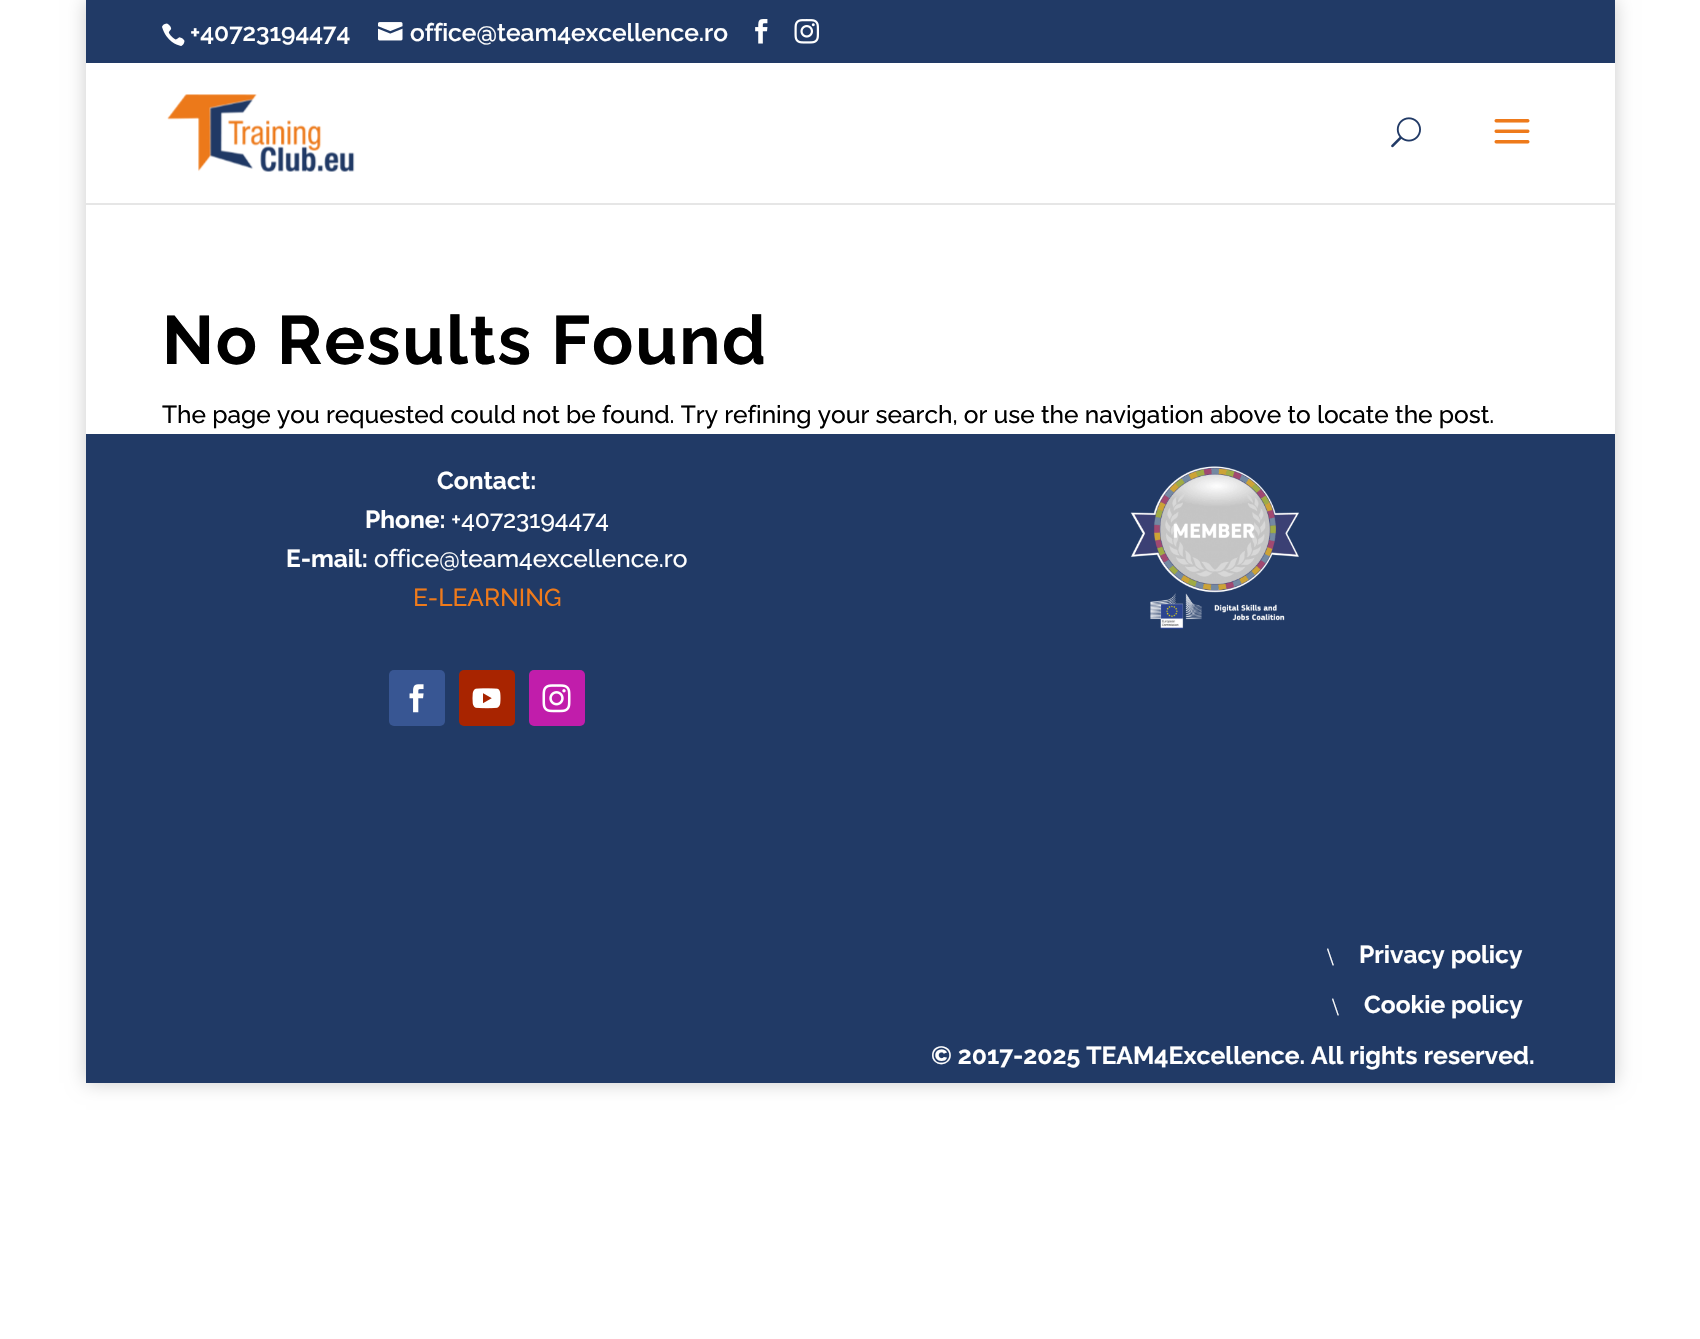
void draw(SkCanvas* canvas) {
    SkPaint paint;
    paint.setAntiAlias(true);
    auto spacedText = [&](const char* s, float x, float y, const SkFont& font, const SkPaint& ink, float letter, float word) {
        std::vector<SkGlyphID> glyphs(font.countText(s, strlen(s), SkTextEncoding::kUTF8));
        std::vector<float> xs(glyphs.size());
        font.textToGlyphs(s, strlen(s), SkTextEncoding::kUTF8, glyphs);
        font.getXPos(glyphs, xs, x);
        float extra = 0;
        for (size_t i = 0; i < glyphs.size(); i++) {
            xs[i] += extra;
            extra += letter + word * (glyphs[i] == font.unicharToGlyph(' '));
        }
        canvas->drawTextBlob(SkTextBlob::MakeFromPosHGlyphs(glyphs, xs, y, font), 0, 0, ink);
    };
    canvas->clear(0xFFFFFFFF);
    canvas->save();
    canvas->clipPath(SkPathBuilder(SkPathFillType::kEvenOdd).moveTo(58, 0).lineTo(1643, 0).lineTo(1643, 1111).lineTo(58, 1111).close().moveTo(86, 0).lineTo(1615, 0).lineTo(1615, 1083).lineTo(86, 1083).close().detach(), true);
    paint.setColor(0x33000000);
    paint.setMaskFilter(SkMaskFilter::MakeBlur(kNormal_SkBlurStyle, 9));
    canvas->drawRect(SkRect::MakeXYWH(86, 0, 1529, 1083), paint);
    paint.setMaskFilter(nullptr);
    canvas->restore();
    paint.setColor(0xFF213A66);
    canvas->drawRect(SkRect::MakeXYWH(86, 0, 1529, 63), paint);
    canvas->drawImageRect(SkImages::DeferredFromEncodedData(SkData::MakeFromFileName("img1.png")), SkRect::MakeXYWH(162, 23, 23, 23), SkSamplingOptions());
    SkFont font1(fontMgr->matchFamilyStyle("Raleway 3", SkFontStyle(100, SkFontStyle::kNormal_Width, SkFontStyle::kUpright_Slant)), 24.5f);
    font1.setSubpixel(true);
    paint.setColor(0xFFFFFFFF);
    canvas->drawString("+40723194474", 190, 41, font1, paint);
    canvas->drawImageRect(SkImages::DeferredFromEncodedData(SkData::MakeFromFileName("img2.png")), SkRect::MakeXYWH(378, 22, 25, 19), SkSamplingOptions());
    canvas->drawString("office@team4excellence.ro", 410, 41, font1, paint);
    canvas->drawImageRect(SkImages::DeferredFromEncodedData(SkData::MakeFromFileName("img3.png")), SkRect::MakeXYWH(755, 19, 13, 25), SkSamplingOptions());
    canvas->drawImageRect(SkImages::DeferredFromEncodedData(SkData::MakeFromFileName("img4.png")), SkRect::MakeXYWH(794, 19, 25, 25), SkSamplingOptions());
    paint.setColor(0xFFE6E6E6);
    canvas->drawRect(SkRect::MakeXYWH(86, 203, 1529, 2), paint);
    canvas->drawImageRect(SkImages::DeferredFromEncodedData(SkData::MakeFromFileName("img5.png")), SkRect::MakeXYWH(167, 94, 188, 78), SkSamplingOptions());
    canvas->drawImageRect(SkImages::DeferredFromEncodedData(SkData::MakeFromFileName("img6.png")), SkRect::MakeXYWH(1391, 117, 30, 31), SkSamplingOptions());
    canvas->drawImageRect(SkImages::DeferredFromEncodedData(SkData::MakeFromFileName("img7.png")), SkRect::MakeXYWH(1494, 119, 36, 25), SkSamplingOptions());
    SkFont font2(fontMgr->matchFamilyStyle("Raleway", SkFontStyle(100, SkFontStyle::kNormal_Width, SkFontStyle::kUpright_Slant)), 68.25f);
    font2.setSubpixel(true);
    paint.setColor(0xFF000000);
    spacedText("No Results Found", 162, 364, font2, paint, 1.75f, 0);
    SkFont font3(fontMgr->matchFamilyStyle("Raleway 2", SkFontStyle(100, SkFontStyle::kNormal_Width, SkFontStyle::kUpright_Slant)), 24.5f);
    font3.setSubpixel(true);
    canvas->drawString("The page you requested could not be found. Try refining your search, or use the navigation above to locate the post.", 162, 423, font3, paint);
    paint.setColor(0xFF213A66);
    canvas->drawRect(SkRect::MakeXYWH(86, 434, 1529, 649), paint);
    SkFont font4(fontMgr->matchFamilyStyle("Raleway", SkFontStyle(100, SkFontStyle::kNormal_Width, SkFontStyle::kUpright_Slant)), 24.5f);
    font4.setSubpixel(true);
    paint.setColor(0xFFFFFFFF);
    canvas->drawString("Contact:", 437, 489, font4, paint);
    canvas->drawString("Phone:", 365, 528, font4, paint);
    canvas->drawString("+40723194474", 451, 528, font3, paint);
    canvas->drawString("E-mail:", 286, 567, font4, paint);
    canvas->drawString("office@team4excellence.ro", 374, 567, font3, paint);
    paint.setColor(0xFFEE7A1B);
    canvas->drawString("E-LEARNING", 413, 606, font3, paint);
    paint.setColor(0xFF385693);
    canvas->drawRoundRect(SkRect::MakeXYWH(389, 670, 56, 56), 5, 5, paint);
    canvas->drawImageRect(SkImages::DeferredFromEncodedData(SkData::MakeFromFileName("img8.png")), SkRect::MakeXYWH(409, 684, 15, 29), SkSamplingOptions());
    paint.setColor(0xFFA82400);
    canvas->drawRoundRect(SkRect::MakeXYWH(459, 670, 56, 56), 5, 5, paint);
    canvas->drawImageRect(SkImages::DeferredFromEncodedData(SkData::MakeFromFileName("img9.png")), SkRect::MakeXYWH(472, 688, 29, 21), SkSamplingOptions());
    paint.setColor(0xFFC11DAB);
    canvas->drawRoundRect(SkRect::MakeXYWH(529, 670, 56, 56), 5, 5, paint);
    canvas->drawImageRect(SkImages::DeferredFromEncodedData(SkData::MakeFromFileName("img10.png")), SkRect::MakeXYWH(542, 684, 29, 29), SkSamplingOptions());
    canvas->drawImageRect(SkImages::DeferredFromEncodedData(SkData::MakeFromFileName("img11.png")), SkRect::MakeXYWH(1130, 466, 169, 163), SkSamplingOptions());
    SkFont font5(fontMgr->matchFamilyStyle("Liberation Serif", SkFontStyle::Normal()), 24.5f);
    font5.setSubpixel(true);
    paint.setColor(0xFFFFFFFF);
    canvas->drawString("\\", 1327, 965, font5, paint);
    canvas->drawString("Privacy policy", 1359, 963, font4, paint);
    canvas->drawString("\\", 1332, 1015, font5, paint);
    canvas->drawString("Cookie policy", 1364, 1013, font4, paint);
    SkFont font6(fontMgr->matchFamilyStyle("Raleway", SkFontStyle(100, SkFontStyle::kNormal_Width, SkFontStyle::kUpright_Slant)), 24.75f);
    font6.setSubpixel(true);
    canvas->drawString("© 2017-2025 TEAM4Excellence. All rights reserved.", 931, 1064, font6, paint);
}
